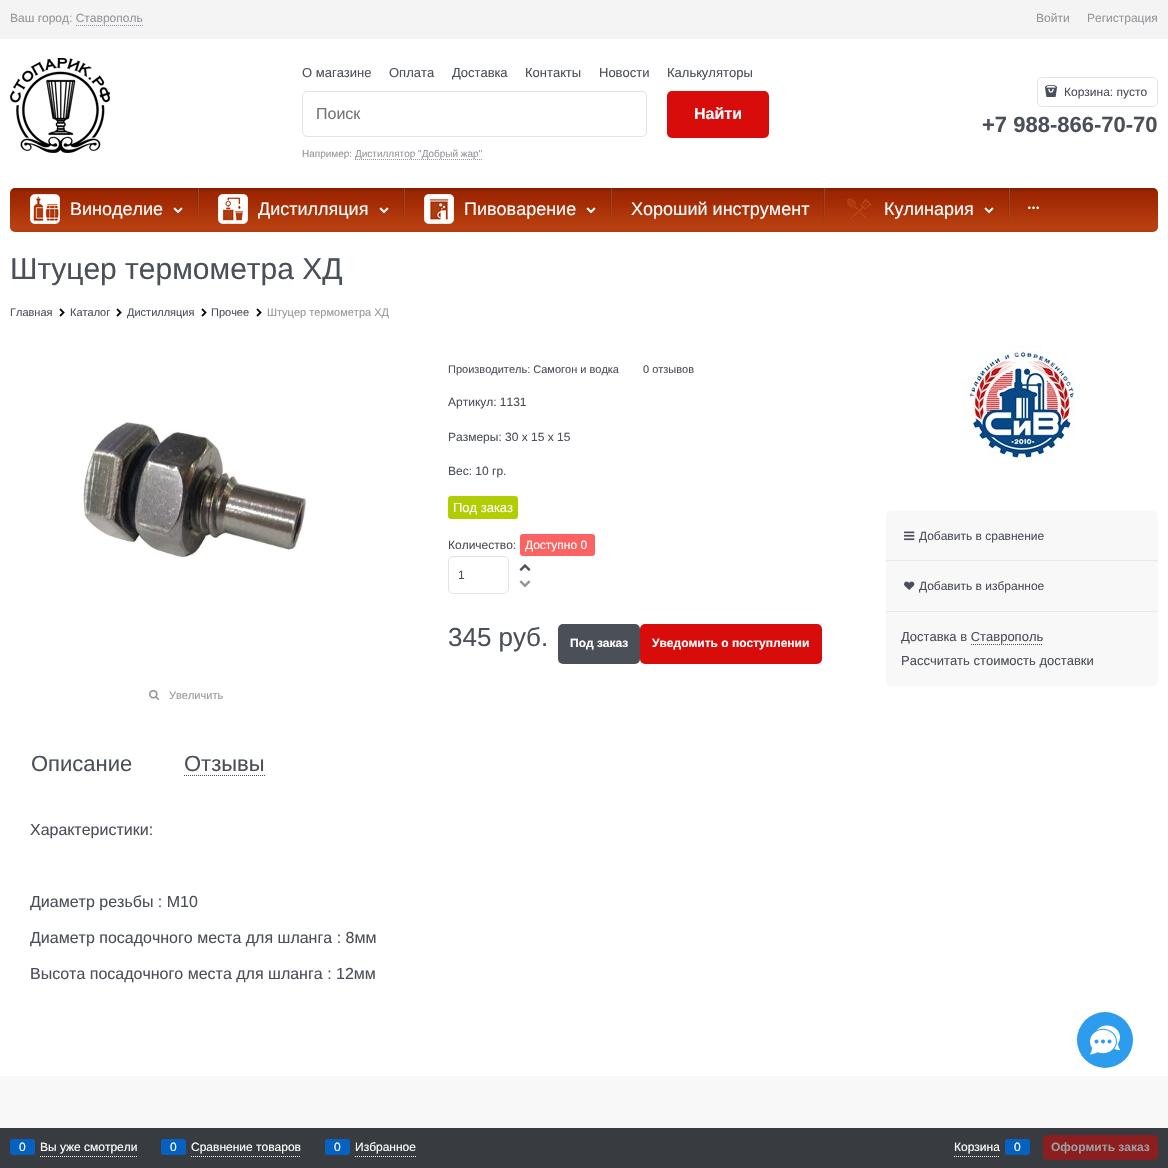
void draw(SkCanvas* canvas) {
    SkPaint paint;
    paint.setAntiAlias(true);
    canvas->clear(0xFFFFFFFF);
    paint.setColor(0xFFF4F4F4);
    canvas->drawRect(SkRect::MakeXYWH(0, 0, 1168, 39), paint);
    SkFont font1(fontMgr->matchFamilyStyle("Liberation Sans", SkFontStyle::Normal()), 12);
    font1.setSubpixel(true);
    paint.setColor(0xFF94969B);
    canvas->drawString("Ваш город: Ставрополь", 10, 22, font1, paint);
    paint.setStyle(SkPaint::kStroke_Style);
    paint.setStrokeWidth(1);
    paint.setPathEffect(SkDashPathEffect::Make({{1, 1}}, 0));
    canvas->drawPath(SkPathBuilder().moveTo(76, 25.5f).lineTo(143, 25.5f).detach(), paint);
    paint.setPathEffect(nullptr);
    paint.setStyle(SkPaint::kFill_Style);
    canvas->drawString("Войти", 1036, 22, font1, paint);
    canvas->drawString("Регистрация", 1087, 22, font1, paint);
    canvas->drawImageRect(SkImages::DeferredFromEncodedData(SkData::MakeFromFileName("img1.png")), SkRect::MakeXYWH(10, 58, 100, 95), SkSamplingOptions());
    SkFont font2(fontMgr->matchFamilyStyle("Liberation Sans", SkFontStyle::Normal()), 13);
    font2.setSubpixel(true);
    paint.setColor(0xFF4B4F58);
    canvas->drawString("О магазине", 302, 77, font2, paint);
    canvas->drawString("Оплата", 389, 77, font2, paint);
    canvas->drawString("Доставка", 452, 77, font2, paint);
    canvas->drawString("Контакты", 525, 77, font2, paint);
    canvas->drawString("Новости", 599, 77, font2, paint);
    canvas->drawString("Калькуляторы", 667, 77, font2, paint);
    paint.setStyle(SkPaint::kStroke_Style);
    paint.setColor(0xFFE2E3E4);
    canvas->drawRoundRect(SkRect::MakeXYWH(302.5f, 91.5f, 344, 45), 4.5f, 4.5f, paint);
    SkFont font3(fontMgr->matchFamilyStyle("Liberation Sans", SkFontStyle::Normal()), 16);
    font3.setSubpixel(true);
    paint.setStyle(SkPaint::kFill_Style);
    paint.setColor(0xFF757575);
    canvas->drawString("Поиск", 316, 119, font3, paint);
    SkFont font4(fontMgr->matchFamilyStyle("Liberation Sans", SkFontStyle::Normal()), 10);
    font4.setSubpixel(true);
    paint.setColor(0xFF94969B);
    canvas->drawString("Например:", 302, 157, font4, paint);
    paint.setStyle(SkPaint::kStroke_Style);
    paint.setPathEffect(SkDashPathEffect::Make({{1, 1}}, 0));
    canvas->drawPath(SkPathBuilder().moveTo(355, 159.5f).lineTo(482, 159.5f).detach(), paint);
    paint.setPathEffect(nullptr);
    paint.setStyle(SkPaint::kFill_Style);
    canvas->drawString("Дистиллятор \"Добрый жар\"", 355, 157, font4, paint);
    paint.setColor(0xFFD70C0B);
    canvas->drawRoundRect(SkRect::MakeXYWH(667, 91, 102, 47), 5, 5, paint);
    SkFont font5(fontMgr->matchFamilyStyle("Liberation Sans", SkFontStyle::Bold()), 16);
    font5.setSubpixel(true);
    paint.setColor(0xFFFFFFFF);
    canvas->drawString("Найти", 694, 119, font5, paint);
    paint.setStyle(SkPaint::kStroke_Style);
    paint.setColor(0xFFE2E3E4);
    canvas->drawRoundRect(SkRect::MakeXYWH(1037.5f, 77.5f, 120, 29), 4.5f, 4.5f, paint);
    canvas->drawImageRect(SkImages::DeferredFromEncodedData(SkData::MakeFromFileName("img2.png")), SkRect::MakeXYWH(1045, 85, 12, 12), SkSamplingOptions());
    paint.setStyle(SkPaint::kFill_Style);
    paint.setColor(0xFF4B4F58);
    canvas->drawString("Корзина: пусто", 1064, 96, font1, paint);
    SkFont font6(fontMgr->matchFamilyStyle("Liberation Sans", SkFontStyle::Bold()), 22);
    font6.setSubpixel(true);
    canvas->drawString("+7 988-866-70-70", 982, 132, font6, paint);
    {
        const SkColor colors[] = {0xFF7C1F00, 0xFF9B2702, 0xFF9F2702, 0xFFB33A0D, 0xFFB43E10, 0xFFB93F10, 0xFFB64012, 0xFFAD3C10};
        const float stops[] = {0, 0.1f, 0.21f, 0.72f, 0.82f, 0.9f, 0.95f, 1};
        const SkPoint ends[] = {{584, 188}, {584, 232}};
        paint.setShader(SkGradientShader::MakeLinear(ends, colors, stops, 8, SkTileMode::kClamp));
        paint.setAlpha(255);
    }
    canvas->drawRoundRect(SkRect::MakeXYWH(10, 188, 1148, 44), 5, 5, paint);
    canvas->drawImageRect(SkImages::DeferredFromEncodedData(SkData::MakeFromFileName("img3.png")), SkRect::MakeXYWH(30, 194, 30, 30), SkSamplingOptions());
    SkFont font7(fontMgr->matchFamilyStyle("Liberation Sans", SkFontStyle::Normal()), 18);
    font7.setSubpixel(true);
    paint.setShader(nullptr);
    paint.setColor(0xFFFFFFFF);
    canvas->drawString("Виноделие", 70, 215, font7, paint);
    canvas->drawImageRect(SkImages::DeferredFromEncodedData(SkData::MakeFromFileName("img4.png")), SkRect::MakeXYWH(173, 207, 10, 7), SkSamplingOptions());
    {
        const SkColor colors[] = {0x24FFFFFF, 0x05FFFFFF, 0x00FFFFFF};
        const float stops[] = {0, 0.72f, 1};
        const SkPoint ends[] = {{199, 188}, {199, 232}};
        paint.setShader(SkGradientShader::MakeLinear(ends, colors, stops, 3, SkTileMode::kClamp));
        paint.setAlpha(255);
    }
    canvas->drawRect(SkRect::MakeXYWH(198, 188, 1, 31), paint);
    {
        const SkColor colors[] = {0x63393939, 0x54393939, 0x1F393939, 0x03393939, 0x03FFFFFF, 0x00FFFFFF};
        const float stops[] = {0, 0.17f, 0.61f, 0.96f, 0.98f, 1};
        const SkPoint ends[] = {{198, 188}, {198, 232}};
        paint.setShader(SkGradientShader::MakeLinear(ends, colors, stops, 6, SkTileMode::kClamp));
        paint.setAlpha(255);
    }
    canvas->drawRect(SkRect::MakeXYWH(197, 188, 1, 44), paint);
    canvas->drawImageRect(SkImages::DeferredFromEncodedData(SkData::MakeFromFileName("img5.png")), SkRect::MakeXYWH(218, 194, 30, 30), SkSamplingOptions());
    paint.setShader(nullptr);
    paint.setColor(0xFFFFFFFF);
    canvas->drawString("Дистилляция", 258, 215, font7, paint);
    canvas->drawImageRect(SkImages::DeferredFromEncodedData(SkData::MakeFromFileName("img4.png")), SkRect::MakeXYWH(379, 207, 10, 7), SkSamplingOptions());
    {
        const SkColor colors[] = {0x24FFFFFF, 0x05FFFFFF, 0x00FFFFFF};
        const float stops[] = {0, 0.72f, 1};
        const SkPoint ends[] = {{405, 188}, {405, 232}};
        paint.setShader(SkGradientShader::MakeLinear(ends, colors, stops, 3, SkTileMode::kClamp));
        paint.setAlpha(255);
    }
    canvas->drawRect(SkRect::MakeXYWH(404, 188, 1, 31), paint);
    {
        const SkColor colors[] = {0x63393939, 0x54393939, 0x1F393939, 0x03393939, 0x03FFFFFF, 0x00FFFFFF};
        const float stops[] = {0, 0.17f, 0.61f, 0.96f, 0.98f, 1};
        const SkPoint ends[] = {{404, 188}, {404, 232}};
        paint.setShader(SkGradientShader::MakeLinear(ends, colors, stops, 6, SkTileMode::kClamp));
        paint.setAlpha(255);
    }
    canvas->drawRect(SkRect::MakeXYWH(403, 188, 1, 44), paint);
    canvas->drawImageRect(SkImages::DeferredFromEncodedData(SkData::MakeFromFileName("img6.png")), SkRect::MakeXYWH(424, 194, 30, 30), SkSamplingOptions());
    paint.setShader(nullptr);
    paint.setColor(0xFFFFFFFF);
    canvas->drawString("Пивоварение", 464, 215, font7, paint);
    canvas->drawImageRect(SkImages::DeferredFromEncodedData(SkData::MakeFromFileName("img4.png")), SkRect::MakeXYWH(586, 207, 10, 7), SkSamplingOptions());
    {
        const SkColor colors[] = {0x24FFFFFF, 0x05FFFFFF, 0x00FFFFFF};
        const float stops[] = {0, 0.72f, 1};
        const SkPoint ends[] = {{612, 188}, {612, 232}};
        paint.setShader(SkGradientShader::MakeLinear(ends, colors, stops, 3, SkTileMode::kClamp));
        paint.setAlpha(255);
    }
    canvas->drawRect(SkRect::MakeXYWH(611, 188, 1, 31), paint);
    {
        const SkColor colors[] = {0x63393939, 0x54393939, 0x1F393939, 0x03393939, 0x03FFFFFF, 0x00FFFFFF};
        const float stops[] = {0, 0.17f, 0.61f, 0.96f, 0.98f, 1};
        const SkPoint ends[] = {{611, 188}, {611, 232}};
        paint.setShader(SkGradientShader::MakeLinear(ends, colors, stops, 6, SkTileMode::kClamp));
        paint.setAlpha(255);
    }
    canvas->drawRect(SkRect::MakeXYWH(610, 188, 1, 44), paint);
    paint.setShader(nullptr);
    paint.setColor(0xFFFFFFFF);
    canvas->drawString("Хороший инструмент", 631, 215, font7, paint);
    {
        const SkColor colors[] = {0x24FFFFFF, 0x05FFFFFF, 0x00FFFFFF};
        const float stops[] = {0, 0.72f, 1};
        const SkPoint ends[] = {{825, 188}, {825, 232}};
        paint.setShader(SkGradientShader::MakeLinear(ends, colors, stops, 3, SkTileMode::kClamp));
        paint.setAlpha(255);
    }
    canvas->drawRect(SkRect::MakeXYWH(824, 188, 1, 31), paint);
    {
        const SkColor colors[] = {0x63393939, 0x54393939, 0x1F393939, 0x03393939, 0x03FFFFFF, 0x00FFFFFF};
        const float stops[] = {0, 0.17f, 0.61f, 0.96f, 0.98f, 1};
        const SkPoint ends[] = {{824, 188}, {824, 232}};
        paint.setShader(SkGradientShader::MakeLinear(ends, colors, stops, 6, SkTileMode::kClamp));
        paint.setAlpha(255);
    }
    canvas->drawRect(SkRect::MakeXYWH(823, 188, 1, 44), paint);
    canvas->drawImageRect(SkImages::DeferredFromEncodedData(SkData::MakeFromFileName("img7.png")), SkRect::MakeXYWH(847, 198, 25, 21), SkSamplingOptions());
    paint.setShader(nullptr);
    paint.setColor(0xFFFFFFFF);
    canvas->drawString("Кулинария", 884, 215, font7, paint);
    canvas->drawImageRect(SkImages::DeferredFromEncodedData(SkData::MakeFromFileName("img4.png")), SkRect::MakeXYWH(984, 207, 10, 7), SkSamplingOptions());
    {
        const SkColor colors[] = {0x24FFFFFF, 0x05FFFFFF, 0x00FFFFFF};
        const float stops[] = {0, 0.72f, 1};
        const SkPoint ends[] = {{1010, 188}, {1010, 232}};
        paint.setShader(SkGradientShader::MakeLinear(ends, colors, stops, 3, SkTileMode::kClamp));
        paint.setAlpha(255);
    }
    canvas->drawRect(SkRect::MakeXYWH(1009, 188, 1, 31), paint);
    {
        const SkColor colors[] = {0x63393939, 0x54393939, 0x1F393939, 0x03393939, 0x03FFFFFF, 0x00FFFFFF};
        const float stops[] = {0, 0.17f, 0.61f, 0.96f, 0.98f, 1};
        const SkPoint ends[] = {{1009, 188}, {1009, 232}};
        paint.setShader(SkGradientShader::MakeLinear(ends, colors, stops, 6, SkTileMode::kClamp));
        paint.setAlpha(255);
    }
    canvas->drawRect(SkRect::MakeXYWH(1008, 188, 1, 44), paint);
    canvas->drawImageRect(SkImages::DeferredFromEncodedData(SkData::MakeFromFileName("img8.png")), SkRect::MakeXYWH(1028, 206, 11, 4), SkSamplingOptions());
    SkFont font8(fontMgr->matchFamilyStyle("Liberation Sans", SkFontStyle::Normal()), 30);
    font8.setSubpixel(true);
    paint.setShader(nullptr);
    paint.setColor(0xFF4B4F58);
    canvas->drawString("Штуцер термометра ХД", 10, 279, font8, paint);
    SkFont font9(fontMgr->matchFamilyStyle("Liberation Sans", SkFontStyle::Normal()), 11);
    font9.setSubpixel(true);
    canvas->drawString("Главная", 10, 316, font9, paint);
    canvas->drawImageRect(SkImages::DeferredFromEncodedData(SkData::MakeFromFileName("img9.png")), SkRect::MakeXYWH(59, 308, 6, 9), SkSamplingOptions());
    canvas->drawString("Каталог", 70, 316, font9, paint);
    canvas->drawImageRect(SkImages::DeferredFromEncodedData(SkData::MakeFromFileName("img9.png")), SkRect::MakeXYWH(116, 308, 6, 9), SkSamplingOptions());
    canvas->drawString("Дистилляция", 127, 316, font9, paint);
    canvas->drawImageRect(SkImages::DeferredFromEncodedData(SkData::MakeFromFileName("img9.png")), SkRect::MakeXYWH(201, 308, 6, 9), SkSamplingOptions());
    canvas->drawString("Прочее", 211, 316, font9, paint);
    canvas->drawImageRect(SkImages::DeferredFromEncodedData(SkData::MakeFromFileName("img9.png")), SkRect::MakeXYWH(256, 308, 6, 9), SkSamplingOptions());
    paint.setColor(0xFF94969B);
    canvas->drawString("Штуцер термометра ХД", 267, 316, font9, paint);
    paint.setColor(0xFF4B4F58);
    canvas->drawString("Производитель: Самогон и водка", 448, 373, font9, paint);
    canvas->drawString("0 отзывов", 643, 373, font9, paint);
    canvas->drawString("Артикул: 1131", 448, 406, font1, paint);
    canvas->drawString("Размеры:", 448, 441, font1, paint);
    canvas->drawString("30 x 15 x 15", 505, 441, font1, paint);
    canvas->drawString("Вес: 10 гр.", 448, 475, font1, paint);
    paint.setColor(0xFFB1CD03);
    canvas->drawRoundRect(SkRect::MakeXYWH(448, 496, 70, 23), 3, 3, paint);
    paint.setColor(0xFFFFFFFF);
    canvas->drawString("Под заказ", 453, 512, font2, paint);
    paint.setColor(0xFF4B4F58);
    canvas->drawString("Количество:", 448, 549, font1, paint);
    paint.setColor(0xFFFB6363);
    canvas->drawRoundRect(SkRect::MakeXYWH(520, 534, 75, 22), 3, 3, paint);
    paint.setColor(0xFFFFFFFF);
    canvas->drawString("Доступно 0", 525, 549, font1, paint);
    paint.setStyle(SkPaint::kStroke_Style);
    paint.setColor(0xFFE2E3E4);
    canvas->drawRoundRect(SkRect::MakeXYWH(448.5f, 556.5f, 60, 37), 4.5f, 4.5f, paint);
    paint.setStyle(SkPaint::kFill_Style);
    paint.setColor(0xFF4B4F58);
    canvas->drawString("1", 458, 579, font1, paint);
    canvas->drawImageRect(SkImages::DeferredFromEncodedData(SkData::MakeFromFileName("img10.png")), SkRect::MakeXYWH(519, 564, 12, 7), SkSamplingOptions());
    canvas->drawImageRect(SkImages::DeferredFromEncodedData(SkData::MakeFromFileName("img11.png")), SkRect::MakeXYWH(519, 580, 12, 8), SkSamplingOptions());
    SkFont font10(fontMgr->matchFamilyStyle("Liberation Sans", SkFontStyle::Normal()), 26);
    font10.setSubpixel(true);
    canvas->drawString("345 руб.", 448, 646, font10, paint);
    canvas->drawRoundRect(SkRect::MakeXYWH(558, 624, 82, 40), 5, 5, paint);
    SkFont font11(fontMgr->matchFamilyStyle("Liberation Sans", SkFontStyle::Bold()), 12);
    font11.setSubpixel(true);
    paint.setColor(0xFFFFFFFF);
    canvas->drawString("Под заказ", 570, 647, font11, paint);
    paint.setColor(0xFFD70C0B);
    canvas->drawRoundRect(SkRect::MakeXYWH(640, 624, 182, 40), 5, 5, paint);
    paint.setColor(0xFFFFFFFF);
    canvas->drawString("Уведомить о поступлении", 652, 647, font11, paint);
    canvas->drawImageRect(SkImages::DeferredFromEncodedData(SkData::MakeFromFileName("img12.png")), SkRect::MakeXYWH(83, 419, 224, 139), SkSamplingOptions());
    canvas->drawImageRect(SkImages::DeferredFromEncodedData(SkData::MakeFromFileName("img13.png")), SkRect::MakeXYWH(149, 689, 11, 12), SkSamplingOptions());
    paint.setColor(0xFF94969B);
    canvas->drawString("Увеличить", 169, 699, font9, paint);
    SkFont font12(fontMgr->matchFamilyStyle("Liberation Sans", SkFontStyle::Normal()), 22);
    font12.setSubpixel(true);
    paint.setColor(0xFF4B4F58);
    canvas->drawString("Описание", 31, 771, font12, paint);
    paint.setStyle(SkPaint::kStroke_Style);
    paint.setPathEffect(SkDashPathEffect::Make({{1, 1}}, 0));
    canvas->drawPath(SkPathBuilder().moveTo(184, 775.5f).lineTo(265, 775.5f).detach(), paint);
    paint.setPathEffect(nullptr);
    paint.setStyle(SkPaint::kFill_Style);
    canvas->drawString("Отзывы", 184, 771, font12, paint);
    canvas->drawString("Характеристики:", 30, 835, font3, paint);
    canvas->drawString("Диаметр резьбы : М10", 30, 907, font3, paint);
    canvas->drawString("Диаметр посадочного места для шланга : 8мм", 30, 943, font3, paint);
    canvas->drawString("Высота посадочного места для шланга : 12мм", 30, 979, font3, paint);
    canvas->drawImageRect(SkImages::DeferredFromEncodedData(SkData::MakeFromFileName("img14.png")), SkRect::MakeXYWH(962, 345, 112, 113), SkSamplingOptions());
    paint.setColor(0xFFF8F8F8);
    canvas->drawRoundRect(SkRect::MakeXYWH(886, 511, 272, 175), 5, 5, paint);
    paint.setColor(0xFFE9E9E9);
    canvas->drawRect(SkRect::MakeXYWH(886, 560, 272, 1), paint);
    canvas->drawImageRect(SkImages::DeferredFromEncodedData(SkData::MakeFromFileName("img15.png")), SkRect::MakeXYWH(904, 531, 11, 10), SkSamplingOptions());
    paint.setColor(0xFF4B4F58);
    canvas->drawString("Добавить в сравнение", 919, 540, font1, paint);
    paint.setColor(0xFFE9E9E9);
    canvas->drawRect(SkRect::MakeXYWH(886, 611, 272, 1), paint);
    canvas->drawImageRect(SkImages::DeferredFromEncodedData(SkData::MakeFromFileName("img16.png")), SkRect::MakeXYWH(904, 581, 11, 9), SkSamplingOptions());
    paint.setColor(0xFF4B4F58);
    canvas->drawString("Добавить в избранное", 919, 590, font1, paint);
    canvas->drawString("Доставка в Ставрополь", 901, 641, font2, paint);
    paint.setStyle(SkPaint::kStroke_Style);
    paint.setPathEffect(SkDashPathEffect::Make({{1, 1}}, 0));
    canvas->drawPath(SkPathBuilder().moveTo(971, 644.5f).lineTo(1043, 644.5f).detach(), paint);
    paint.setPathEffect(nullptr);
    paint.setStyle(SkPaint::kFill_Style);
    canvas->drawString("Рассчитать стоимость доставки", 901, 665, font2, paint);
    paint.setColor(0xFFF8F8F8);
    canvas->drawRect(SkRect::MakeXYWH(0, 1076, 1168, 52), paint);
    paint.setColor(0xFF383C40);
    canvas->drawRect(SkRect::MakeXYWH(0, 1128, 1168, 40), paint);
    paint.setStyle(SkPaint::kStroke_Style);
    paint.setColor(0xFFFFFFFF);
    paint.setPathEffect(SkDashPathEffect::Make({{1, 1}}, 0));
    canvas->drawPath(SkPathBuilder().moveTo(40, 1156.5f).lineTo(137, 1156.5f).detach(), paint);
    paint.setPathEffect(nullptr);
    paint.setStyle(SkPaint::kFill_Style);
    paint.setColor(0xFF0662C1);
    canvas->drawRoundRect(SkRect::MakeXYWH(10, 1139, 25, 16), 3, 3, paint);
    paint.setColor(0xFFFFFFFF);
    canvas->drawString("0", 19, 1151, font1, paint);
    canvas->drawString("Вы уже смотрели", 40, 1151, font1, paint);
    paint.setStyle(SkPaint::kStroke_Style);
    paint.setPathEffect(SkDashPathEffect::Make({{1, 1}}, 0));
    canvas->drawPath(SkPathBuilder().moveTo(191, 1156.5f).lineTo(301, 1156.5f).detach(), paint);
    paint.setPathEffect(nullptr);
    paint.setStyle(SkPaint::kFill_Style);
    paint.setColor(0xFF0662C1);
    canvas->drawRoundRect(SkRect::MakeXYWH(161, 1139, 25, 16), 3, 3, paint);
    paint.setColor(0xFFFFFFFF);
    canvas->drawString("0", 170, 1151, font1, paint);
    canvas->drawString("Сравнение товаров", 191, 1151, font1, paint);
    paint.setStyle(SkPaint::kStroke_Style);
    paint.setPathEffect(SkDashPathEffect::Make({{1, 1}}, 0));
    canvas->drawPath(SkPathBuilder().moveTo(355, 1156.5f).lineTo(416, 1156.5f).detach(), paint);
    paint.setPathEffect(nullptr);
    paint.setStyle(SkPaint::kFill_Style);
    paint.setColor(0xFF0662C1);
    canvas->drawRoundRect(SkRect::MakeXYWH(325, 1139, 25, 16), 3, 3, paint);
    paint.setColor(0xFFFFFFFF);
    canvas->drawString("0", 334, 1151, font1, paint);
    canvas->drawString("Избранное", 355, 1151, font1, paint);
    paint.setStyle(SkPaint::kStroke_Style);
    paint.setPathEffect(SkDashPathEffect::Make({{1, 1}}, 0));
    canvas->drawPath(SkPathBuilder().moveTo(954, 1156.5f).lineTo(1000, 1156.5f).detach(), paint);
    paint.setPathEffect(nullptr);
    paint.setStyle(SkPaint::kFill_Style);
    canvas->drawString("Корзина", 954, 1151, font1, paint);
    paint.setColor(0xFF0662C1);
    canvas->drawRoundRect(SkRect::MakeXYWH(1005, 1139, 25, 16), 3, 3, paint);
    paint.setColor(0xFFFFFFFF);
    canvas->drawString("0", 1014, 1151, font1, paint);
    paint.setColor(0xFF8D1E20);
    canvas->drawRoundRect(SkRect::MakeXYWH(1043, 1135, 115, 25), 5, 5, paint);
    paint.setColor(0xFF9C9EA0);
    canvas->drawString("Оформить заказ", 1051, 1151, font11, paint);
    paint.setColor(0xFF2D9CED);
    canvas->drawCircle(1105, 1040, 28, paint);
    canvas->drawImageRect(SkImages::DeferredFromEncodedData(SkData::MakeFromFileName("img17.png")), SkRect::MakeXYWH(1090, 1025, 30, 30), SkSamplingOptions());
}
